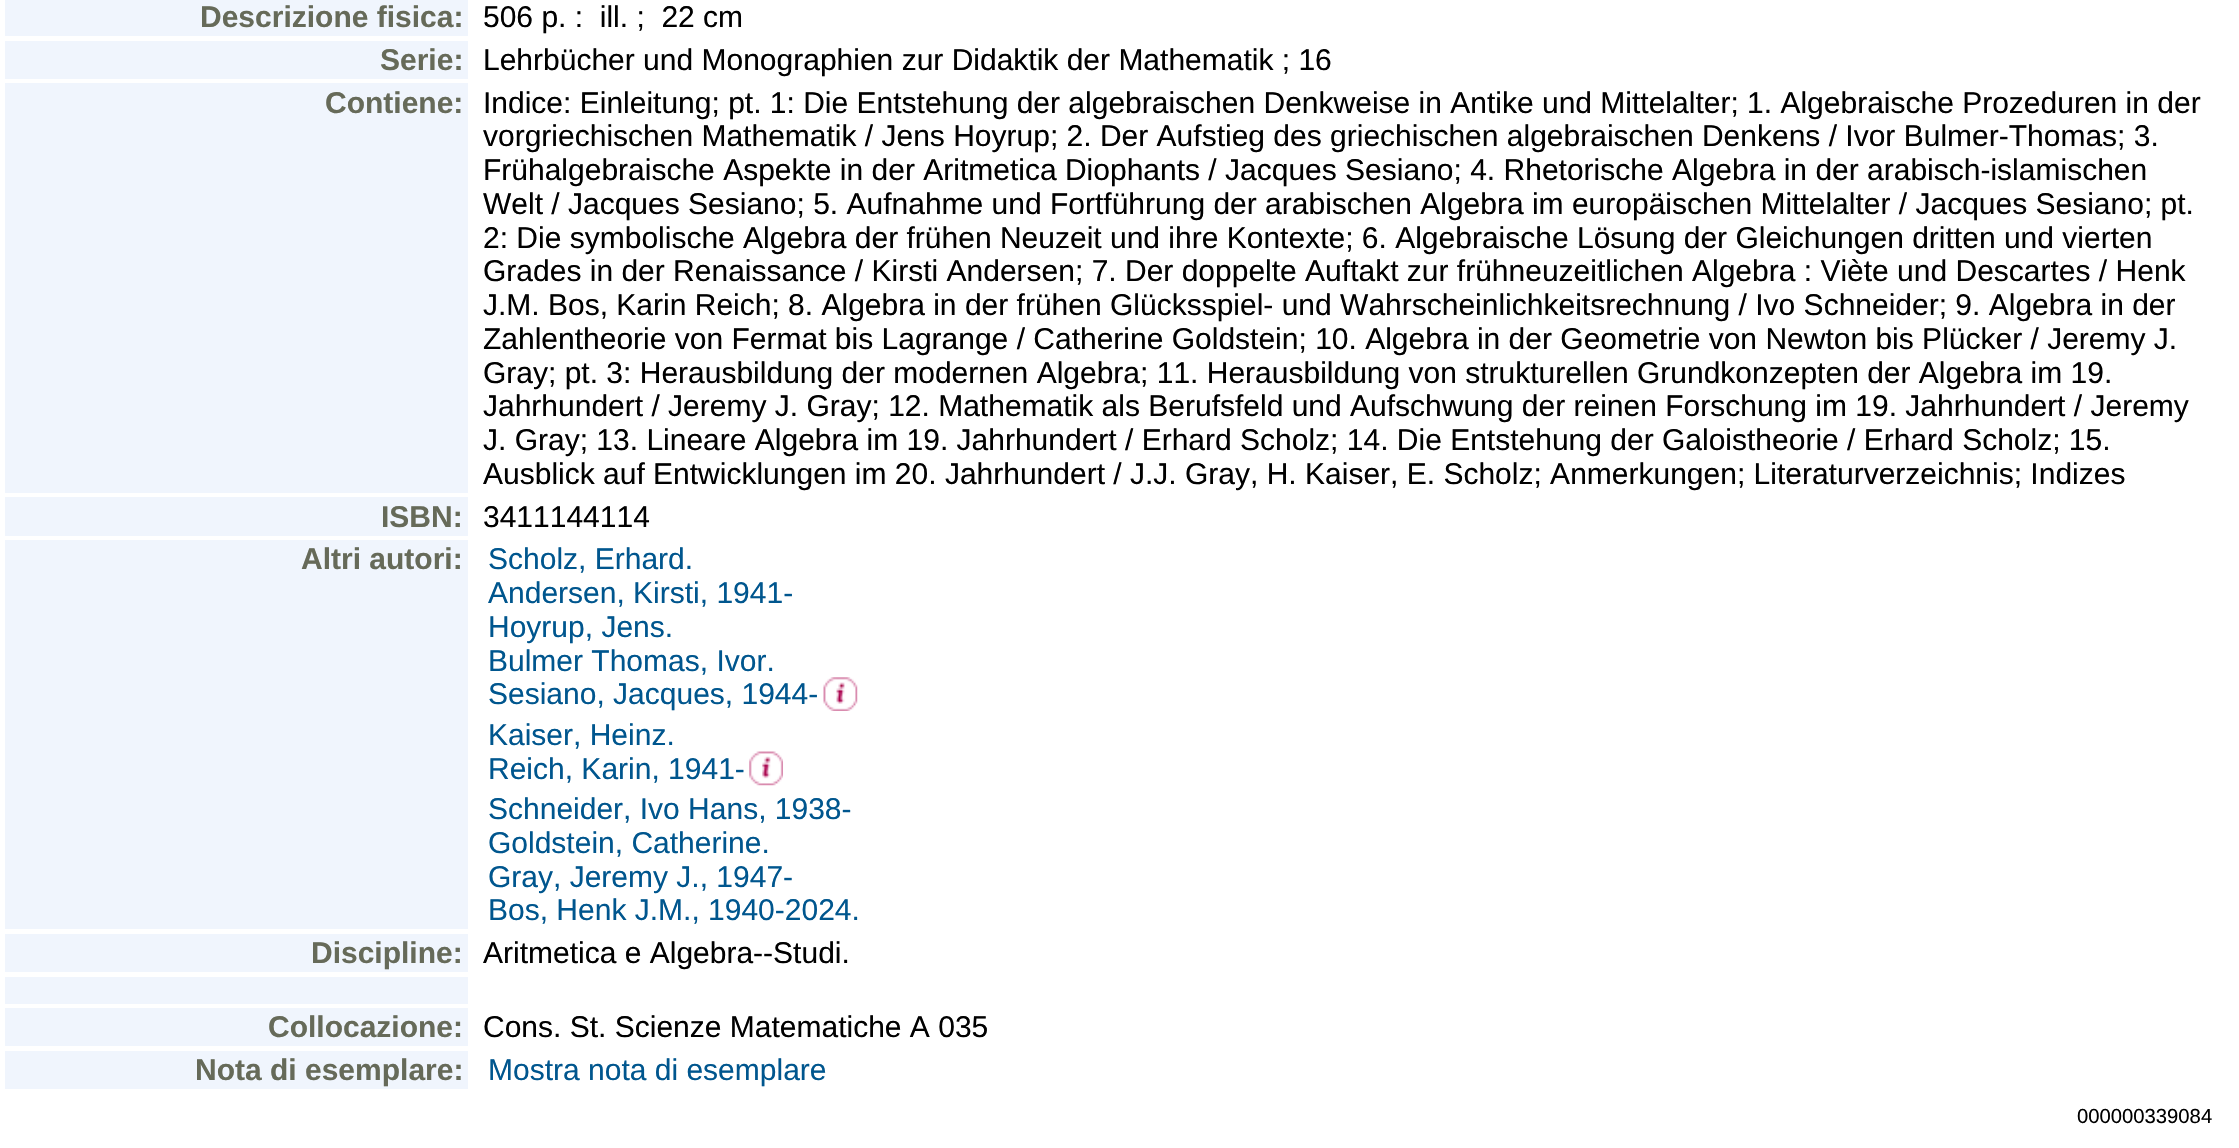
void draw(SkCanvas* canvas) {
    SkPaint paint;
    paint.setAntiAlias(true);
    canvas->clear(0xFFFFFFFF);
    paint.setColor(0xFFF0F5FD);
    canvas->drawRect(SkRect::MakeXYWH(5, 0, 463, 36), paint);
    SkFont font1(fontMgr->matchFamilyStyle("Liberation Sans", SkFontStyle::Bold()), 30);
    font1.setSubpixel(true);
    paint.setColor(0xFF666A59);
    canvas->drawString("Descrizione fisica:", 200, 27, font1, paint);
    SkFont font2(fontMgr->matchFamilyStyle("Liberation Sans", SkFontStyle::Normal()), 30);
    font2.setSubpixel(true);
    paint.setColor(0xFF000000);
    canvas->drawString("506 p. :  ill. ;  22 cm", 483, 27, font2, paint);
    paint.setColor(0xFFF0F5FD);
    canvas->drawRect(SkRect::MakeXYWH(5, 41, 463, 38), paint);
    paint.setColor(0xFF666A59);
    canvas->drawString("Serie:", 380, 70, font1, paint);
    paint.setColor(0xFF000000);
    canvas->drawString("Lehrbücher und Monographien zur Didaktik der Mathematik ; 16", 483, 70, font2, paint);
    paint.setColor(0xFFF0F5FD);
    canvas->drawRect(SkRect::MakeXYWH(5, 83, 463, 410), paint);
    paint.setColor(0xFF666A59);
    canvas->drawString("Contiene:", 325, 113, font1, paint);
    paint.setColor(0xFF000000);
    canvas->drawString("Indice: Einleitung; pt. 1: Die Entstehung der algebraischen Denkweise in Antike und Mittelalter; 1. Algebraische Prozeduren in der", 483, 113, font2, paint);
    canvas->drawString("vorgriechischen Mathematik / Jens Hoyrup; 2. Der Aufstieg des griechischen algebraischen Denkens / Ivor Bulmer-Thomas; 3.", 483, 146, font2, paint);
    canvas->drawString("Frühalgebraische Aspekte in der Aritmetica Diophants / Jacques Sesiano; 4. Rhetorische Algebra in der arabisch-islamischen", 483, 180, font2, paint);
    canvas->drawString("Welt / Jacques Sesiano; 5. Aufnahme und Fortführung der arabischen Algebra im europäischen Mittelalter / Jacques Sesiano; pt.", 483, 214, font2, paint);
    canvas->drawString("2: Die symbolische Algebra der frühen Neuzeit und ihre Kontexte; 6. Algebraische Lösung der Gleichungen dritten und vierten", 483, 248, font2, paint);
    canvas->drawString("Grades in der Renaissance / Kirsti Andersen; 7. Der doppelte Auftakt zur frühneuzeitlichen Algebra : Viète und Descartes / Henk", 483, 281, font2, paint);
    canvas->drawString("J.M. Bos, Karin Reich; 8. Algebra in der frühen Glücksspiel- und Wahrscheinlichkeitsrechnung / Ivo Schneider; 9. Algebra in der", 483, 315, font2, paint);
    canvas->drawString("Zahlentheorie von Fermat bis Lagrange / Catherine Goldstein; 10. Algebra in der Geometrie von Newton bis Plücker / Jeremy J.", 483, 349, font2, paint);
    canvas->drawString("Gray; pt. 3: Herausbildung der modernen Algebra; 11. Herausbildung von strukturellen Grundkonzepten der Algebra im 19.", 483, 383, font2, paint);
    canvas->drawString("Jahrhundert / Jeremy J. Gray; 12. Mathematik als Berufsfeld und Aufschwung der reinen Forschung im 19. Jahrhundert / Jeremy", 483, 416, font2, paint);
    canvas->drawString("J. Gray; 13. Lineare Algebra im 19. Jahrhundert / Erhard Scholz; 14. Die Entstehung der Galoistheorie / Erhard Scholz; 15.", 483, 450, font2, paint);
    canvas->drawString("Ausblick auf Entwicklungen im 20. Jahrhundert / J.J. Gray, H. Kaiser, E. Scholz; Anmerkungen; Literaturverzeichnis; Indizes", 483, 484, font2, paint);
    paint.setColor(0xFFF0F5FD);
    canvas->drawRect(SkRect::MakeXYWH(5, 497, 463, 39), paint);
    paint.setColor(0xFF666A59);
    canvas->drawString("ISBN:", 381, 527, font1, paint);
    paint.setColor(0xFF000000);
    canvas->drawString("3411144114", 483, 527, font2, paint);
    paint.setColor(0xFFF0F5FD);
    canvas->drawRect(SkRect::MakeXYWH(5, 540, 463, 389), paint);
    paint.setColor(0xFF666A59);
    canvas->drawString("Altri autori:", 301, 569, font1, paint);
    paint.setColor(0xFF00568E);
    canvas->drawString("Scholz, Erhard.", 488, 569, font2, paint);
    canvas->drawString("Andersen, Kirsti, 1941-", 488, 603, font2, paint);
    canvas->drawString("Hoyrup, Jens.", 488, 637, font2, paint);
    canvas->drawString("Bulmer Thomas, Ivor.", 488, 671, font2, paint);
    canvas->drawString("Sesiano, Jacques, 1944-", 488, 704, font2, paint);
    canvas->drawImageRect(SkImages::DeferredFromEncodedData(SkData::MakeFromFileName("img1.png")), SkRect::MakeXYWH(823, 677, 35, 34), SkSamplingOptions());
    canvas->drawString("Kaiser, Heinz.", 488, 745, font2, paint);
    canvas->drawString("Reich, Karin, 1941-", 488, 779, font2, paint);
    canvas->drawImageRect(SkImages::DeferredFromEncodedData(SkData::MakeFromFileName("img2.png")), SkRect::MakeXYWH(749, 751, 34, 35), SkSamplingOptions());
    canvas->drawString("Schneider, Ivo Hans, 1938-", 488, 819, font2, paint);
    canvas->drawString("Goldstein, Catherine.", 488, 853, font2, paint);
    canvas->drawString("Gray, Jeremy J., 1947-", 488, 887, font2, paint);
    canvas->drawString("Bos, Henk J.M., 1940-2024.", 488, 920, font2, paint);
    paint.setColor(0xFFF0F5FD);
    canvas->drawRect(SkRect::MakeXYWH(5, 934, 463, 38), paint);
    paint.setColor(0xFF666A59);
    canvas->drawString("Discipline:", 311, 963, font1, paint);
    paint.setColor(0xFF000000);
    canvas->drawString("Aritmetica e Algebra--Studi.", 483, 963, font2, paint);
    paint.setColor(0xFFF0F5FD);
    canvas->drawRect(SkRect::MakeXYWH(5, 977, 463, 27), paint);
    canvas->drawRect(SkRect::MakeXYWH(5, 1008, 463, 38), paint);
    paint.setColor(0xFF666A59);
    canvas->drawString("Collocazione:", 268, 1037, font1, paint);
    paint.setColor(0xFF000000);
    canvas->drawString("Cons. St. Scienze Matematiche A 035", 483, 1037, font2, paint);
    paint.setColor(0xFFF0F5FD);
    canvas->drawRect(SkRect::MakeXYWH(5, 1051, 463, 38), paint);
    paint.setColor(0xFF666A59);
    canvas->drawString("Nota di esemplare:", 195, 1080, font1, paint);
    paint.setColor(0xFF00568E);
    canvas->drawString("Mostra nota di esemplare", 488, 1080, font2, paint);
    SkFont font3(fontMgr->matchFamilyStyle("Liberation Sans", SkFontStyle::Normal()), 20.25f);
    font3.setSubpixel(true);
    paint.setColor(0xFF000000);
    canvas->drawString("000000339084", 2077, 1123, font3, paint);
}
